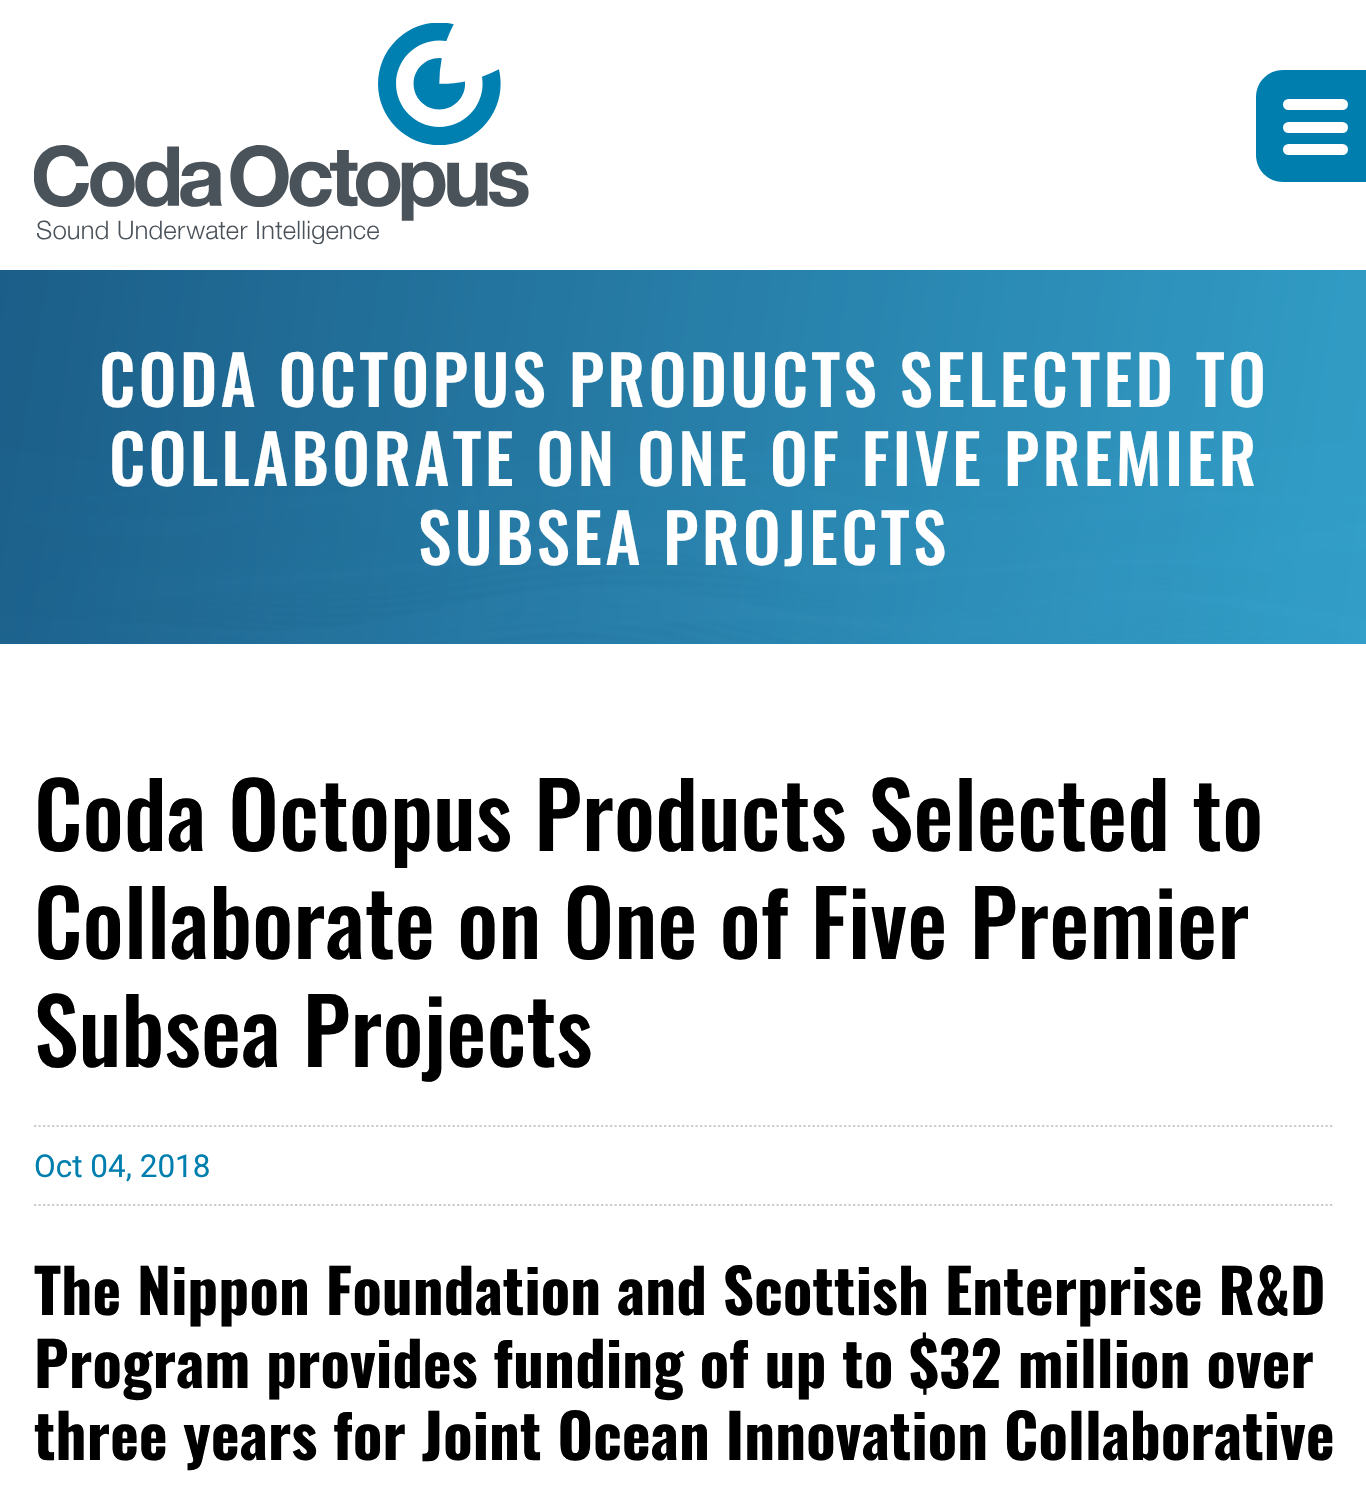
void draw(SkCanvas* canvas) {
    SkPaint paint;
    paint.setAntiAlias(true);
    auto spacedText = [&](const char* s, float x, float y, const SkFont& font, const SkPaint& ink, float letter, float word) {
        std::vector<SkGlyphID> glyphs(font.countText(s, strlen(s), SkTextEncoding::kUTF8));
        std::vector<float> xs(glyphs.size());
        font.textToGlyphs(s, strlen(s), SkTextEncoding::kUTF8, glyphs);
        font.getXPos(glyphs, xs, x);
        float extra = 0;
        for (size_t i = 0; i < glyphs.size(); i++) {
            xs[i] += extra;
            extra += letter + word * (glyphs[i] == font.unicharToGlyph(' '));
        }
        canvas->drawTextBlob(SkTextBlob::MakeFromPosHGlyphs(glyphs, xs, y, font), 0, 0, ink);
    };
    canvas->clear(0xFFFFFFFF);
    canvas->drawImageRect(SkImages::DeferredFromEncodedData(SkData::MakeFromFileName("img1.png")), SkRect::MakeXYWH(34, 23, 495, 222), SkSamplingOptions());
    paint.setColor(0xFF007FAF);
    canvas->drawPath(SkPathBuilder().moveTo(1283, 70).lineTo(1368, 70).lineTo(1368, 182).lineTo(1283, 182).cubicTo(1268, 182, 1256, 170, 1256, 155).lineTo(1256, 97).cubicTo(1256, 82, 1268, 70, 1283, 70).close().detach(), paint);
    paint.setColor(0xFFFFFFFF);
    canvas->drawRoundRect(SkRect::MakeXYWH(1283, 99, 65, 11), 5.5f, 5.5f, paint);
    canvas->drawRoundRect(SkRect::MakeXYWH(1283, 122, 65, 11), 5.5f, 5.5f, paint);
    canvas->drawRoundRect(SkRect::MakeXYWH(1283, 144, 65, 11), 5.5f, 5.5f, paint);
    paint.setColor(0xFF00709A);
    canvas->drawRect(SkRect::MakeXYWH(0, 643, 1366, 1), paint);
    canvas->drawImageRect(SkImages::DeferredFromEncodedData(SkData::MakeFromFileName("img2.png")), SkRect::MakeXYWH(0, 270, 1366, 374), SkSamplingOptions());
    {
        const SkColor colors[] = {0xE01F5B86, 0xE039A4CD};
        const float stops[] = {0, 1};
        const SkPoint ends[] = {{-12, 346}, {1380, 567}};
        paint.setShader(SkGradientShader::MakeLinear(ends, colors, stops, 2, SkTileMode::kClamp));
        paint.setAlpha(255);
    }
    canvas->drawRect(SkRect::MakeXYWH(0, 270, 1366, 374), paint);
    SkFont font1(fontMgr->matchFamilyStyle("Oswald", SkFontStyle(500, SkFontStyle::kNormal_Width, SkFontStyle::kUpright_Slant)), 67.5f);
    font1.setSubpixel(true);
    paint.setShader(nullptr);
    paint.setColor(0xFFFFFFFF);
    spacedText("CODA OCTOPUS PRODUCTS SELECTED TO", 99, 407, font1, paint, 3.15f, 0);
    spacedText("COLLABORATE ON ONE OF FIVE PREMIER", 109, 486, font1, paint, 3.15f, 0);
    spacedText("SUBSEA PROJECTS", 418, 565, font1, paint, 3.15f, 0);
    SkFont font2(fontMgr->matchFamilyStyle("Oswald", SkFontStyle(500, SkFontStyle::kNormal_Width, SkFontStyle::kUpright_Slant)), 90);
    font2.setSubpixel(true);
    paint.setColor(0xFF000000);
    spacedText("Coda Octopus Products Selected to", 34, 851, font2, paint, 0.23f, 0);
    spacedText("Collaborate on One of Five Premier", 34, 959, font2, paint, 0.23f, 0);
    spacedText("Subsea Projects", 34, 1067, font2, paint, 0.23f, 0);
    paint.setStyle(SkPaint::kStroke_Style);
    paint.setStrokeWidth(2.2f);
    paint.setColor(0xFFCCCCCC);
    paint.setPathEffect(SkDashPathEffect::Make({{2.25f, 2.25f}}, 0));
    canvas->drawPath(SkPathBuilder().moveTo(34, 1126).lineTo(1334, 1126).detach(), paint);
    paint.setPathEffect(nullptr);
    paint.setPathEffect(SkDashPathEffect::Make({{2.25f, 2.25f}}, 0));
    canvas->drawPath(SkPathBuilder().moveTo(34, 1205).lineTo(1334, 1205).detach(), paint);
    paint.setPathEffect(nullptr);
    SkFont font3(fontMgr->matchFamilyStyle("Roboto", SkFontStyle::Normal()), 31.5f);
    font3.setSubpixel(true);
    paint.setStyle(SkPaint::kFill_Style);
    paint.setColor(0xFF007FAF);
    canvas->drawString("Oct 04, 2018", 34, 1177, font3, paint);
    SkFont font4(fontMgr->matchFamilyStyle("Oswald", SkFontStyle::Bold()), 60.75f);
    font4.setSubpixel(true);
    paint.setColor(0xFF000000);
    spacedText("The Nippon Foundation and Scottish Enterprise R&D", 34, 1315, font4, paint, 0.23f, 0);
    spacedText("Program provides funding of up to $32 million over", 34, 1388, font4, paint, 0.23f, 0);
    spacedText("three years for Joint Ocean Innovation Collaborative", 34, 1460, font4, paint, 0.23f, 0);
}
